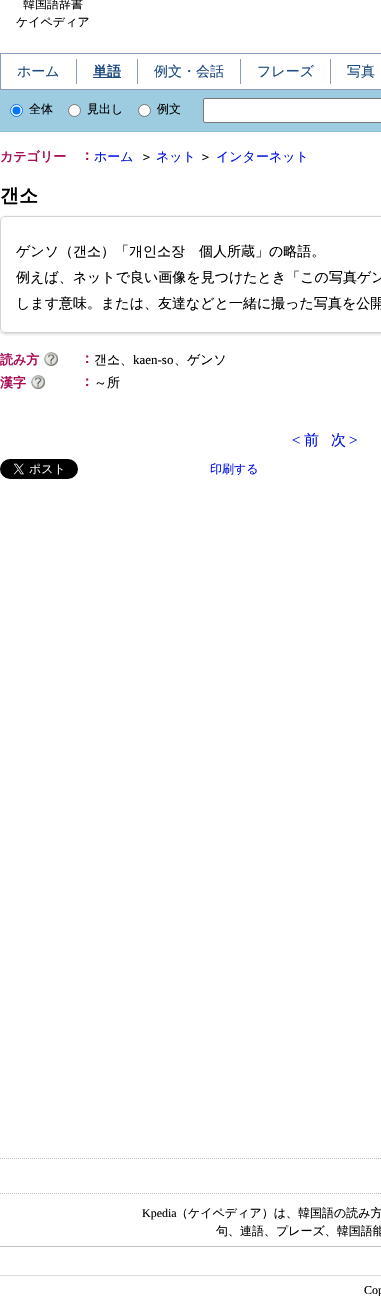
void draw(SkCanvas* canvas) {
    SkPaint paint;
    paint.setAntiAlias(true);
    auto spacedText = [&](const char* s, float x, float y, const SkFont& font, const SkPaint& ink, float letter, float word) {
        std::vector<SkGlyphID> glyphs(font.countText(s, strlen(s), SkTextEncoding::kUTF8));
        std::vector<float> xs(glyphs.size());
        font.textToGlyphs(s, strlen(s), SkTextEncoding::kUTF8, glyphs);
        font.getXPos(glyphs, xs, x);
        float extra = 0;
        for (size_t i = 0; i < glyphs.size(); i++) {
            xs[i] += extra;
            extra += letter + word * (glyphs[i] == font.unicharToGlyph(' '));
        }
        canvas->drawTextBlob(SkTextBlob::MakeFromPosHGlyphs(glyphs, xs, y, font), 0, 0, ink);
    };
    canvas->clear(0xFFFFFFFF);
    SkFont font1(fontMgr->matchFamilyStyle("WenQuanYi Zen Hei", SkFontStyle(500, SkFontStyle::kNormal_Width, SkFontStyle::kUpright_Slant)), 12);
    font1.setSubpixel(true);
    paint.setColor(0xFF000000);
    canvas->drawString("韓国語辞書", 23, 8, font1, paint);
    canvas->drawString("ケイペディア", 16, 26, font1, paint);
    paint.setColor(0xFF8C9AC1);
    canvas->drawRect(SkRect::MakeXYWH(0, 53, 381, 1), paint);
    canvas->drawRect(SkRect::MakeXYWH(0, 53, 1, 37), paint);
    canvas->drawRect(SkRect::MakeXYWH(76, 59, 1, 25), paint);
    SkFont font2(fontMgr->matchFamilyStyle("WenQuanYi Zen Hei", SkFontStyle(500, SkFontStyle::kNormal_Width, SkFontStyle::kUpright_Slant)), 14);
    font2.setSubpixel(true);
    paint.setColor(0xFF1C4A81);
    canvas->drawString("ホーム", 17, 76, font2, paint);
    paint.setColor(0xFF8C9AC1);
    canvas->drawRect(SkRect::MakeXYWH(137, 59, 1, 25), paint);
    paint.setColor(0xFF1C4A81);
    canvas->drawRect(SkRect::MakeXYWH(93, 77, 28, 1), paint);
    SkFont font3(fontMgr->matchFamilyStyle("WenQuanYi Zen Hei", SkFontStyle::Bold()), 14);
    font3.setSubpixel(true);
    canvas->drawString("単語", 93, 76, font3, paint);
    paint.setColor(0xFF8C9AC1);
    canvas->drawRect(SkRect::MakeXYWH(240, 59, 1, 25), paint);
    paint.setColor(0xFF1C4A81);
    canvas->drawString("例文・会話", 154, 76, font2, paint);
    paint.setColor(0xFF8C9AC1);
    canvas->drawRect(SkRect::MakeXYWH(330, 59, 1, 25), paint);
    paint.setColor(0xFF1C4A81);
    canvas->drawString("フレーズ", 257, 76, font2, paint);
    canvas->drawString("写真", 347, 76, font2, paint);
    paint.setColor(0xFF9DCCE0);
    canvas->drawRect(SkRect::MakeXYWH(0, 90, 381, 41), paint);
    paint.setColor(0xFF8C9AC1);
    canvas->drawRect(SkRect::MakeXYWH(0, 89, 381, 1), paint);
    paint.setColor(0xFF89BDDE);
    canvas->drawRect(SkRect::MakeXYWH(0, 131, 381, 1), paint);
    paint.setColor(0xFFFFFFFF);
    canvas->drawCircle(16.5f, 110.5f, 6, paint);
    paint.setStyle(SkPaint::kStroke_Style);
    paint.setStrokeWidth(1);
    paint.setColor(0xFF0075FF);
    canvas->drawCircle(16.5f, 110.5f, 6, paint);
    paint.setStyle(SkPaint::kFill_Style);
    canvas->drawCircle(16.5f, 110.5f, 4, paint);
    paint.setColor(0xFF000000);
    canvas->drawString("全体", 29, 113, font1, paint);
    paint.setColor(0xFFFFFFFF);
    canvas->drawCircle(74.5f, 110.5f, 6, paint);
    paint.setStyle(SkPaint::kStroke_Style);
    paint.setColor(0xFF767676);
    canvas->drawCircle(74.5f, 110.5f, 6, paint);
    paint.setStyle(SkPaint::kFill_Style);
    paint.setColor(0xFF000000);
    canvas->drawString("見出し", 87, 113, font1, paint);
    paint.setColor(0xFFFFFFFF);
    canvas->drawCircle(144.5f, 110.5f, 6, paint);
    paint.setStyle(SkPaint::kStroke_Style);
    paint.setColor(0xFF767676);
    canvas->drawCircle(144.5f, 110.5f, 6, paint);
    paint.setStyle(SkPaint::kFill_Style);
    paint.setColor(0xFF000000);
    canvas->drawString("例文", 157, 113, font1, paint);
    paint.setColor(0xFFFFFFFF);
    canvas->drawRoundRect(SkRect::MakeXYWH(203.5f, 98.5f, 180, 24), 1.5f, 1.5f, paint);
    paint.setStyle(SkPaint::kStroke_Style);
    paint.setColor(0xFF767676);
    canvas->drawRoundRect(SkRect::MakeXYWH(203.5f, 98.5f, 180, 24), 1.5f, 1.5f, paint);
    SkFont font4(fontMgr->matchFamilyStyle("WenQuanYi Zen Hei", SkFontStyle::Bold()), 13);
    font4.setSubpixel(true);
    paint.setStyle(SkPaint::kFill_Style);
    paint.setColor(0xFFA90B55);
    canvas->drawString("カテゴリー", 0, 161, font4, paint);
    canvas->drawString("：", 80, 160, font3, paint);
    SkFont font5(fontMgr->matchFamilyStyle("WenQuanYi Zen Hei", SkFontStyle(500, SkFontStyle::kNormal_Width, SkFontStyle::kUpright_Slant)), 13);
    font5.setSubpixel(true);
    paint.setColor(0xFF0010E8);
    canvas->drawString("ホーム", 94, 161, font5, paint);
    paint.setColor(0xFF000000);
    canvas->drawString("＞", 140, 161, font5, paint);
    paint.setColor(0xFF0010E8);
    canvas->drawString("ネット", 156, 161, font5, paint);
    paint.setColor(0xFF000000);
    canvas->drawString("＞", 199, 161, font5, paint);
    paint.setColor(0xFF0010E8);
    canvas->drawString("インターネット", 216, 161, font5, paint);
    SkFont font6(fontMgr->matchFamilyStyle("WenQuanYi Zen Hei", SkFontStyle::Bold()), 19);
    font6.setSubpixel(true);
    paint.setColor(0xFF000000);
    canvas->drawString("갠소", 0, 202, font6, paint);
    canvas->save();
    canvas->clipPath(SkPathBuilder(SkPathFillType::kEvenOdd).moveTo(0, 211).lineTo(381, 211).lineTo(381, 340).lineTo(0, 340).close().moveTo(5, 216).lineTo(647, 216).cubicTo(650, 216, 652, 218, 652, 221).lineTo(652, 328).cubicTo(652, 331, 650, 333, 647, 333).lineTo(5, 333).cubicTo(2, 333, 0, 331, 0, 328).lineTo(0, 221).cubicTo(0, 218, 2, 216, 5, 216).close().detach(), true);
    paint.setColor(0xFFD3D3D3);
    paint.setMaskFilter(SkMaskFilter::MakeBlur(kNormal_SkBlurStyle, 1.5f));
    canvas->drawRoundRect(SkRect::MakeXYWH(0, 217, 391, 117), 5, 5, paint);
    paint.setMaskFilter(nullptr);
    canvas->restore();
    paint.setStyle(SkPaint::kStroke_Style);
    canvas->drawRoundRect(SkRect::MakeXYWH(0.5f, 216.5f, 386, 116), 4.5f, 4.5f, paint);
    paint.setStyle(SkPaint::kFill_Style);
    paint.setColor(0xFF000000);
    canvas->drawString("ゲンソ（갠소）「개인소장　個人所蔵」の略語。", 16, 256, font2, paint);
    canvas->drawString("例えば、ネットで良い画像を見つけたとき「この写真ゲン", 16, 282, font2, paint);
    canvas->drawString("します意味。または、友達などと一緒に撮った写真を公開", 16, 308, font2, paint);
    paint.setColor(0xFFA90B55);
    canvas->drawString("読み方", 0, 364, font4, paint);
    canvas->drawImageRect(SkImages::DeferredFromEncodedData(SkData::MakeFromFileName("img1.png")), SkRect::MakeXYWH(44, 352, 14, 14), SkSamplingOptions());
    canvas->drawString("：", 80, 363, font3, paint);
    paint.setColor(0xFF000000);
    canvas->drawString("갠소、", 94, 364, font5, paint);
    SkFont font7(fontMgr->matchFamilyStyle("Liberation Serif", SkFontStyle::Normal()), 13);
    font7.setSubpixel(true);
    canvas->drawString("kaen-so", 133, 364, font7, paint);
    canvas->drawString("、ゲンソ", 174, 364, font5, paint);
    paint.setColor(0xFFA90B55);
    canvas->drawString("漢字", 0, 387, font4, paint);
    canvas->drawImageRect(SkImages::DeferredFromEncodedData(SkData::MakeFromFileName("img1.png")), SkRect::MakeXYWH(31, 375, 14, 14), SkSamplingOptions());
    canvas->drawString("：", 80, 386, font3, paint);
    paint.setColor(0xFF000000);
    canvas->drawString("～所", 94, 387, font5, paint);
    SkFont font8(fontMgr->matchFamilyStyle("Liberation Serif", SkFontStyle::Normal()), 15);
    font8.setSubpixel(true);
    paint.setColor(0xFF0010E8);
    canvas->drawString("<", 292, 445, font8, paint);
    SkFont font9(fontMgr->matchFamilyStyle("WenQuanYi Zen Hei", SkFontStyle(500, SkFontStyle::kNormal_Width, SkFontStyle::kUpright_Slant)), 15);
    font9.setSubpixel(true);
    canvas->drawString("前", 304, 445, font9, paint);
    canvas->drawString("次", 331, 445, font9, paint);
    canvas->drawString(">", 349, 445, font8, paint);
    canvas->drawImageRect(SkImages::DeferredFromEncodedData(SkData::MakeFromFileName("img2.png")), SkRect::MakeXYWH(0, 459, 78, 20), SkSamplingOptions());
    canvas->drawString("印刷する", 210, 473, font1, paint);
    paint.setStyle(SkPaint::kStroke_Style);
    paint.setColor(0xFFC0C0C0);
    paint.setPathEffect(SkDashPathEffect::Make({{1, 1}}, 0));
    canvas->drawPath(SkPathBuilder().moveTo(0, 1158.5f).lineTo(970, 1158.5f).detach(), paint);
    paint.setPathEffect(nullptr);
    paint.setPathEffect(SkDashPathEffect::Make({{1, 1}}, 0));
    canvas->drawPath(SkPathBuilder().moveTo(0, 1193.5f).lineTo(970, 1193.5f).detach(), paint);
    paint.setPathEffect(nullptr);
    SkFont font10(fontMgr->matchFamilyStyle("Liberation Serif", SkFontStyle::Normal()), 12);
    font10.setSubpixel(true);
    paint.setStyle(SkPaint::kFill_Style);
    paint.setColor(0xFF000000);
    canvas->drawString("Kpedia", 142, 1217, font10, paint);
    canvas->drawString("（ケイペディア）は、韓国語の読み方", 176, 1217, font1, paint);
    spacedText("句、連語、プレーズ、韓国語能", 216, 1235, font1, paint, 0, -1);
    paint.setColor(0xFFC0C0C0);
    canvas->drawRect(SkRect::MakeXYWH(0, 1246, 381, 1), paint);
    paint.setColor(0xFFDBDBDB);
    canvas->drawRect(SkRect::MakeXYWH(0, 1275, 381, 1), paint);
    paint.setColor(0xFF000000);
    canvas->drawString("Cop", 364, 1294, font10, paint);
}
